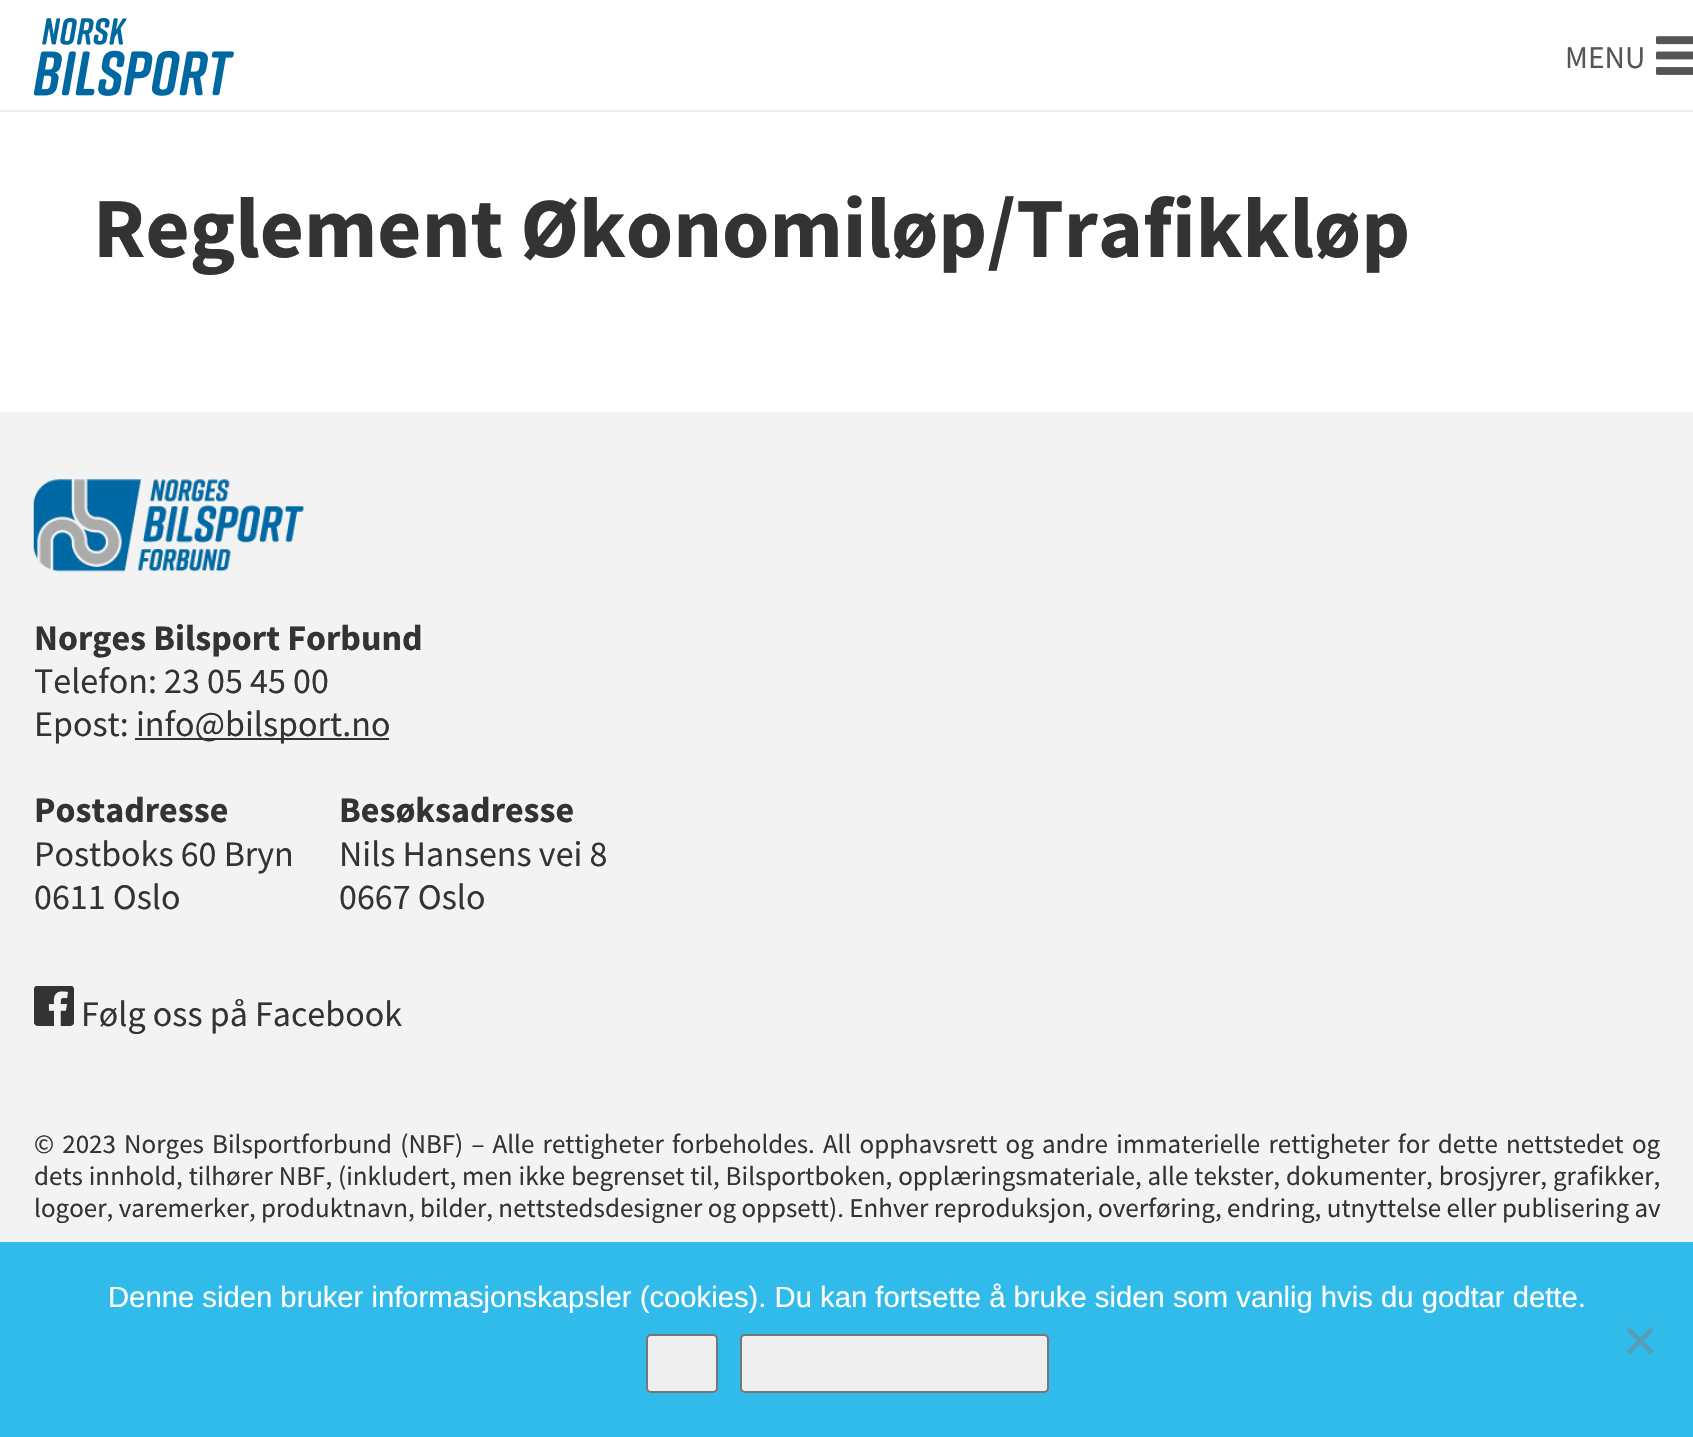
void draw(SkCanvas* canvas) {
    SkPaint paint;
    paint.setAntiAlias(true);
    auto spacedText = [&](const char* s, float x, float y, const SkFont& font, const SkPaint& ink, float letter, float word) {
        std::vector<SkGlyphID> glyphs(font.countText(s, strlen(s), SkTextEncoding::kUTF8));
        std::vector<float> xs(glyphs.size());
        font.textToGlyphs(s, strlen(s), SkTextEncoding::kUTF8, glyphs);
        font.getXPos(glyphs, xs, x);
        float extra = 0;
        for (size_t i = 0; i < glyphs.size(); i++) {
            xs[i] += extra;
            extra += letter + word * (glyphs[i] == font.unicharToGlyph(' '));
        }
        canvas->drawTextBlob(SkTextBlob::MakeFromPosHGlyphs(glyphs, xs, y, font), 0, 0, ink);
    };
    canvas->clear(0xFFFFFFFF);
    paint.setColor(0xFFEEEEEE);
    canvas->drawRect(SkRect::MakeXYWH(0, 110, 1693, 2), paint);
    canvas->drawImageRect(SkImages::DeferredFromEncodedData(SkData::MakeFromFileName("img1.png")), SkRect::MakeXYWH(34, 18, 200, 78), SkSamplingOptions());
    SkFont font1(fontMgr->matchFamilyStyle("Source Sans Pro", SkFontStyle::Normal()), 31.5f);
    font1.setSubpixel(true);
    paint.setColor(0xFF555555);
    canvas->drawString("MENU", 1565, 68, font1, paint);
    canvas->drawImageRect(SkImages::DeferredFromEncodedData(SkData::MakeFromFileName("img2.png")), SkRect::MakeXYWH(1656, 36, 37, 39), SkSamplingOptions());
    SkFont font2(fontMgr->matchFamilyStyle("Source Sans Pro", SkFontStyle::Bold()), 85.5f);
    font2.setSubpixel(true);
    paint.setColor(0xFF333333);
    canvas->drawString("Reglement Økonomiløp/Trafikkløp", 93, 257, font2, paint);
    paint.setColor(0xFFF3F3F3);
    canvas->drawRect(SkRect::MakeXYWH(0, 412, 1693, 1025), paint);
    canvas->drawImageRect(SkImages::DeferredFromEncodedData(SkData::MakeFromFileName("img3.png")), SkRect::MakeXYWH(33, 479, 271, 93), SkSamplingOptions());
    SkFont font3(fontMgr->matchFamilyStyle("Source Sans Pro", SkFontStyle::Bold()), 36);
    font3.setSubpixel(true);
    paint.setColor(0xFF333333);
    canvas->drawString("Norges Bilsport Forbund", 34, 650, font3, paint);
    SkFont font4(fontMgr->matchFamilyStyle("Source Sans Pro", SkFontStyle::Normal()), 36);
    font4.setSubpixel(true);
    canvas->drawString("Telefon: 23 05 45 00", 34, 693, font4, paint);
    canvas->drawString("Epost:", 34, 736, font4, paint);
    canvas->drawRect(SkRect::MakeXYWH(135, 738, 254, 2), paint);
    canvas->drawString("info@bilsport.no", 136, 736, font4, paint);
    canvas->drawString("Postadresse", 34, 822, font3, paint);
    canvas->drawString("Postboks 60 Bryn", 34, 866, font4, paint);
    canvas->drawString("0611 Oslo", 34, 909, font4, paint);
    canvas->drawString("Besøksadresse", 339, 822, font3, paint);
    canvas->drawString("Nils Hansens vei 8", 339, 866, font4, paint);
    canvas->drawString("0667 Oslo", 339, 909, font4, paint);
    canvas->drawImageRect(SkImages::DeferredFromEncodedData(SkData::MakeFromFileName("img4.png")), SkRect::MakeXYWH(34, 986, 40, 40), SkSamplingOptions());
    canvas->drawString("Følg oss på Facebook", 81, 1026, font4, paint);
    SkFont font5(fontMgr->matchFamilyStyle("Source Sans Pro", SkFontStyle::Normal()), 27);
    font5.setSubpixel(true);
    spacedText("© 2023 Norges Bilsportforbund (NBF) – Alle rettigheter forbeholdes. All opphavsrett og andre immaterielle rettigheter for dette nettstedet og", 34, 1153, font5, paint, 0, 2.75f);
    spacedText("dets innhold, tilhører NBF, (inkludert, men ikke begrenset til, Bilsportboken, opplæringsmateriale, alle tekster, dokumenter, brosjyrer, grafikker,", 34, 1185, font5, paint, 0, 0.5f);
    canvas->drawString("logoer, varemerker, produktnavn, bilder, nettstedsdesigner og oppsett). Enhver reproduksjon, overføring, endring, utnyttelse eller publisering av", 34, 1217, font5, paint);
    paint.setColor(0xCC00ACE9);
    canvas->drawRect(SkRect::MakeXYWH(0, 1242, 1693, 195), paint);
    SkFont font6(fontMgr->matchFamilyStyle("Liberation Sans", SkFontStyle::Normal()), 29.25f);
    font6.setSubpixel(true);
    paint.setColor(0xFFFFFFFF);
    canvas->drawString("Denne siden bruker informasjonskapsler (cookies). Du kan fortsette å bruke siden som vanlig hvis du godtar dette.", 108, 1307, font6, paint);
    paint.setColor(0xFFEFEFEF);
    canvas->drawRoundRect(SkRect::MakeXYWH(647, 1335, 70, 57), 4, 4, paint);
    paint.setStyle(SkPaint::kStroke_Style);
    paint.setStrokeWidth(2);
    paint.setColor(0xFF767676);
    canvas->drawRoundRect(SkRect::MakeXYWH(647, 1335, 70, 57), 4, 4, paint);
    paint.setStyle(SkPaint::kFill_Style);
    paint.setColor(0xFFEFEFEF);
    canvas->drawRoundRect(SkRect::MakeXYWH(741, 1335, 307, 57), 4, 4, paint);
    paint.setStyle(SkPaint::kStroke_Style);
    paint.setColor(0xFF767676);
    canvas->drawRoundRect(SkRect::MakeXYWH(741, 1335, 307, 57), 4, 4, paint);
    paint.setStyle(SkPaint::kFill_Style);
    paint.setColor(0xFF589DB6);
    canvas->drawPath(SkPathBuilder().moveTo(1650.5f, 1327.5f).lineTo(1654, 1330.5f).lineTo(1630, 1354.5f).lineTo(1626.5f, 1351.5f).close().detach(), paint);
    canvas->drawPath(SkPathBuilder().moveTo(1626.5f, 1330.5f).lineTo(1630, 1327.5f).lineTo(1654, 1351.5f).lineTo(1650.5f, 1354.5f).close().detach(), paint);
}
